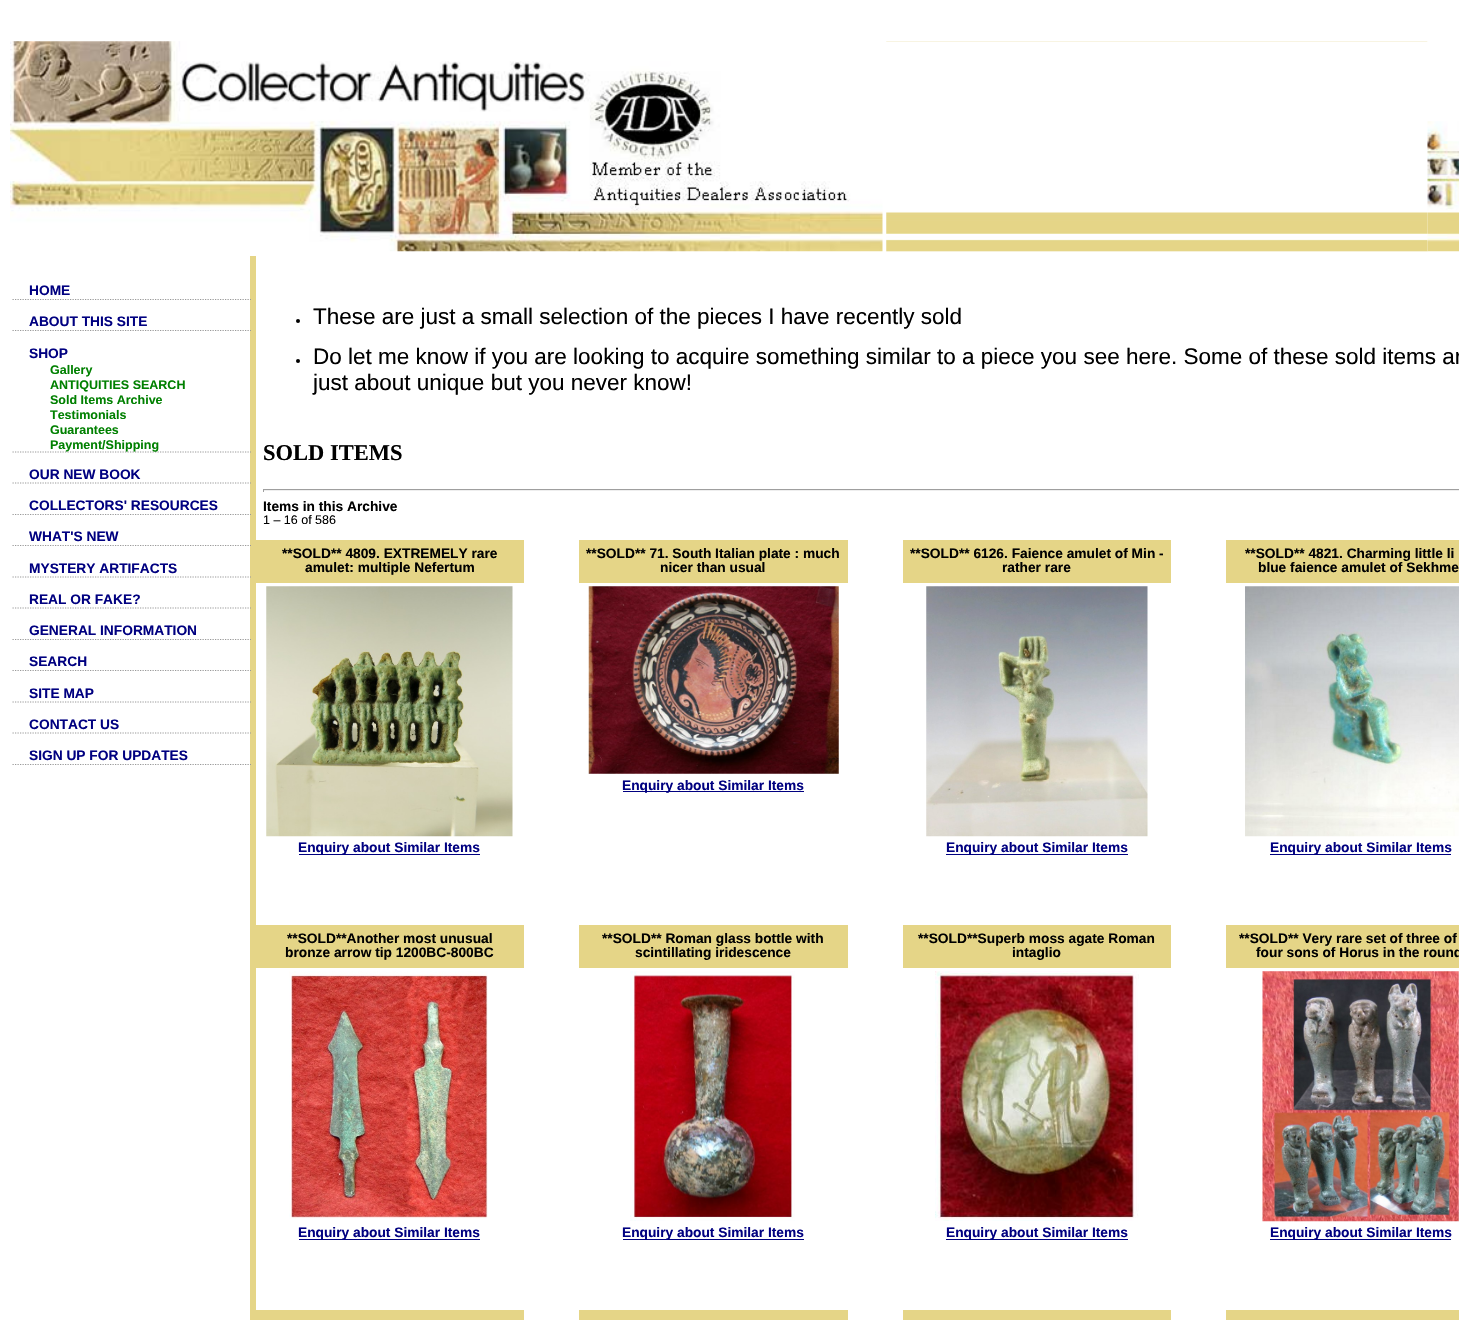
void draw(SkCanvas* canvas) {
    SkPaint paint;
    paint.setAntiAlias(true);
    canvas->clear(0xFFFFFFFF);
    canvas->drawImageRect(SkImages::DeferredFromEncodedData(SkData::MakeFromFileName("img1.png")), SkRect::MakeXYWH(10, 41, 873, 211), SkSamplingOptions());
    canvas->drawImageRect(SkImages::DeferredFromEncodedData(SkData::MakeFromFileName("img2.png")), SkRect::MakeXYWH(886, 41, 542, 211), SkSamplingOptions());
    canvas->drawImageRect(SkImages::DeferredFromEncodedData(SkData::MakeFromFileName("img3.png")), SkRect::MakeXYWH(1427, 41, 32, 211), SkSamplingOptions());
    paint.setColor(0xFFE5D587);
    canvas->drawRect(SkRect::MakeXYWH(250, 256, 6, 1064), paint);
    paint.setStyle(SkPaint::kStroke_Style);
    paint.setStrokeWidth(1.2f);
    paint.setColor(0xFF999999);
    paint.setPathEffect(SkDashPathEffect::Make({{1.25f, 1.25f}}, 0));
    canvas->drawPath(SkPathBuilder().moveTo(12.5f, 299.5f).lineTo(251, 299.5f).detach(), paint);
    paint.setPathEffect(nullptr);
    SkFont font1(fontMgr->matchFamilyStyle("Liberation Sans", SkFontStyle::Bold()), 13.75f);
    font1.setSubpixel(true);
    paint.setStyle(SkPaint::kFill_Style);
    paint.setColor(0xFF000080);
    canvas->drawString("HOME", 29, 295, font1, paint);
    paint.setStyle(SkPaint::kStroke_Style);
    paint.setColor(0xFF999999);
    paint.setPathEffect(SkDashPathEffect::Make({{1.25f, 1.25f}}, 0));
    canvas->drawPath(SkPathBuilder().moveTo(12.5f, 330.5f).lineTo(251, 330.5f).detach(), paint);
    paint.setPathEffect(nullptr);
    paint.setStyle(SkPaint::kFill_Style);
    paint.setColor(0xFF000080);
    canvas->drawString("ABOUT THIS SITE", 29, 326, font1, paint);
    paint.setStyle(SkPaint::kStroke_Style);
    paint.setColor(0xFF999999);
    paint.setPathEffect(SkDashPathEffect::Make({{1.25f, 1.25f}}, 0));
    canvas->drawPath(SkPathBuilder().moveTo(12.5f, 452).lineTo(251, 452).detach(), paint);
    paint.setPathEffect(nullptr);
    paint.setStyle(SkPaint::kFill_Style);
    paint.setColor(0xFF000080);
    canvas->drawString("SHOP", 29, 358, font1, paint);
    SkFont font2(fontMgr->matchFamilyStyle("Liberation Sans", SkFontStyle::Bold()), 12.5f);
    font2.setSubpixel(true);
    paint.setColor(0xFF008000);
    canvas->drawString("Gallery", 50, 374, font2, paint);
    canvas->drawString("ANTIQUITIES SEARCH", 50, 389, font2, paint);
    canvas->drawString("Sold Items Archive", 50, 404, font2, paint);
    canvas->drawString("Testimonials", 50, 419, font2, paint);
    canvas->drawString("Guarantees", 50, 434, font2, paint);
    canvas->drawString("Payment/Shipping", 50, 449, font2, paint);
    paint.setStyle(SkPaint::kStroke_Style);
    paint.setColor(0xFF999999);
    paint.setPathEffect(SkDashPathEffect::Make({{1.25f, 1.25f}}, 0));
    canvas->drawPath(SkPathBuilder().moveTo(12.5f, 483).lineTo(251, 483).detach(), paint);
    paint.setPathEffect(nullptr);
    paint.setStyle(SkPaint::kFill_Style);
    paint.setColor(0xFF000080);
    canvas->drawString("OUR NEW BOOK", 29, 479, font1, paint);
    paint.setStyle(SkPaint::kStroke_Style);
    paint.setColor(0xFF999999);
    paint.setPathEffect(SkDashPathEffect::Make({{1.25f, 1.25f}}, 0));
    canvas->drawPath(SkPathBuilder().moveTo(12.5f, 514.5f).lineTo(251, 514.5f).detach(), paint);
    paint.setPathEffect(nullptr);
    paint.setStyle(SkPaint::kFill_Style);
    paint.setColor(0xFF000080);
    canvas->drawString("COLLECTORS' RESOURCES", 29, 510, font1, paint);
    paint.setStyle(SkPaint::kStroke_Style);
    paint.setColor(0xFF999999);
    paint.setPathEffect(SkDashPathEffect::Make({{1.25f, 1.25f}}, 0));
    canvas->drawPath(SkPathBuilder().moveTo(12.5f, 545.5f).lineTo(251, 545.5f).detach(), paint);
    paint.setPathEffect(nullptr);
    paint.setStyle(SkPaint::kFill_Style);
    paint.setColor(0xFF000080);
    canvas->drawString("WHAT'S NEW", 29, 541, font1, paint);
    paint.setStyle(SkPaint::kStroke_Style);
    paint.setColor(0xFF999999);
    paint.setPathEffect(SkDashPathEffect::Make({{1.25f, 1.25f}}, 0));
    canvas->drawPath(SkPathBuilder().moveTo(12.5f, 577).lineTo(251, 577).detach(), paint);
    paint.setPathEffect(nullptr);
    paint.setStyle(SkPaint::kFill_Style);
    paint.setColor(0xFF000080);
    canvas->drawString("MYSTERY ARTIFACTS", 29, 573, font1, paint);
    paint.setStyle(SkPaint::kStroke_Style);
    paint.setColor(0xFF999999);
    paint.setPathEffect(SkDashPathEffect::Make({{1.25f, 1.25f}}, 0));
    canvas->drawPath(SkPathBuilder().moveTo(12.5f, 608).lineTo(251, 608).detach(), paint);
    paint.setPathEffect(nullptr);
    paint.setStyle(SkPaint::kFill_Style);
    paint.setColor(0xFF000080);
    canvas->drawString("REAL OR FAKE?", 29, 604, font1, paint);
    paint.setStyle(SkPaint::kStroke_Style);
    paint.setColor(0xFF999999);
    paint.setPathEffect(SkDashPathEffect::Make({{1.25f, 1.25f}}, 0));
    canvas->drawPath(SkPathBuilder().moveTo(12.5f, 639.5f).lineTo(251, 639.5f).detach(), paint);
    paint.setPathEffect(nullptr);
    paint.setStyle(SkPaint::kFill_Style);
    paint.setColor(0xFF000080);
    canvas->drawString("GENERAL INFORMATION", 29, 635, font1, paint);
    paint.setStyle(SkPaint::kStroke_Style);
    paint.setColor(0xFF999999);
    paint.setPathEffect(SkDashPathEffect::Make({{1.25f, 1.25f}}, 0));
    canvas->drawPath(SkPathBuilder().moveTo(12.5f, 670.5f).lineTo(251, 670.5f).detach(), paint);
    paint.setPathEffect(nullptr);
    paint.setStyle(SkPaint::kFill_Style);
    paint.setColor(0xFF000080);
    canvas->drawString("SEARCH", 29, 666, font1, paint);
    paint.setStyle(SkPaint::kStroke_Style);
    paint.setColor(0xFF999999);
    paint.setPathEffect(SkDashPathEffect::Make({{1.25f, 1.25f}}, 0));
    canvas->drawPath(SkPathBuilder().moveTo(12.5f, 702).lineTo(251, 702).detach(), paint);
    paint.setPathEffect(nullptr);
    paint.setStyle(SkPaint::kFill_Style);
    paint.setColor(0xFF000080);
    canvas->drawString("SITE MAP", 29, 698, font1, paint);
    paint.setStyle(SkPaint::kStroke_Style);
    paint.setColor(0xFF999999);
    paint.setPathEffect(SkDashPathEffect::Make({{1.25f, 1.25f}}, 0));
    canvas->drawPath(SkPathBuilder().moveTo(12.5f, 733).lineTo(251, 733).detach(), paint);
    paint.setPathEffect(nullptr);
    paint.setStyle(SkPaint::kFill_Style);
    paint.setColor(0xFF000080);
    canvas->drawString("CONTACT US", 29, 729, font1, paint);
    paint.setStyle(SkPaint::kStroke_Style);
    paint.setColor(0xFF999999);
    paint.setPathEffect(SkDashPathEffect::Make({{1.25f, 1.25f}}, 0));
    canvas->drawPath(SkPathBuilder().moveTo(12.5f, 764.5f).lineTo(251, 764.5f).detach(), paint);
    paint.setPathEffect(nullptr);
    paint.setStyle(SkPaint::kFill_Style);
    paint.setColor(0xFF000080);
    canvas->drawString("SIGN UP FOR UPDATES", 29, 760, font1, paint);
    paint.setColor(0xFF000000);
    canvas->drawCircle(298, 321, 2, paint);
    SkFont font3(fontMgr->matchFamilyStyle("Liberation Sans", SkFontStyle::Normal()), 22.5f);
    font3.setSubpixel(true);
    canvas->drawString("These are just a small selection of the pieces I have recently sold", 313, 324, font3, paint);
    canvas->drawCircle(298, 361, 2, paint);
    canvas->drawString("Do let me know if you are looking to acquire something similar to a piece you see here. Some of these sold items ar", 313, 364, font3, paint);
    canvas->drawString("just about unique but you never know!", 313, 390, font3, paint);
    SkFont font4(fontMgr->matchFamilyStyle("Liberation Serif", SkFontStyle::Bold()), 22.5f);
    font4.setSubpixel(true);
    canvas->drawString("SOLD ITEMS", 263, 460, font4, paint);
    paint.setColor(0xFF9F9F9F);
    canvas->drawRect(SkRect::MakeXYWH(263, 489, 1196, 1), paint);
    paint.setColor(0xFFEEEEEE);
    canvas->drawRect(SkRect::MakeXYWH(263, 490, 1196, 1), paint);
    paint.setColor(0xFF9F9F9F);
    canvas->drawRect(SkRect::MakeXYWH(263, 489, 1, 3), paint);
    paint.setColor(0xFF000000);
    canvas->drawString("Items in this Archive", 263, 511, font1, paint);
    SkFont font5(fontMgr->matchFamilyStyle("Liberation Sans", SkFontStyle::Normal()), 12.5f);
    font5.setSubpixel(true);
    canvas->drawString("1 – 16 of 586", 263, 524, font5, paint);
    paint.setColor(0xFFE5D587);
    canvas->drawRect(SkRect::MakeXYWH(256, 540, 268, 43), paint);
    paint.setColor(0xFF000000);
    canvas->drawString("**SOLD** 4809. EXTREMELY rare", 282, 558, font1, paint);
    canvas->drawString("amulet: multiple Nefertum", 305, 572, font1, paint);
    canvas->drawImageRect(SkImages::DeferredFromEncodedData(SkData::MakeFromFileName("img4.png")), SkRect::MakeXYWH(266, 586, 247, 251), SkSamplingOptions());
    paint.setColor(0xFF000080);
    canvas->drawRect(SkRect::MakeXYWH(299, 854, 181, 1), paint);
    canvas->drawString("Enquiry about Similar Items", 298, 852, font1, paint);
    paint.setColor(0xFFE5D587);
    canvas->drawRect(SkRect::MakeXYWH(579, 540, 269, 43), paint);
    paint.setColor(0xFF000000);
    canvas->drawString("**SOLD** 71. South Italian plate : much", 586, 558, font1, paint);
    canvas->drawString("nicer than usual", 660, 572, font1, paint);
    canvas->drawImageRect(SkImages::DeferredFromEncodedData(SkData::MakeFromFileName("img5.png")), SkRect::MakeXYWH(588, 586, 251, 188), SkSamplingOptions());
    paint.setColor(0xFF000080);
    canvas->drawRect(SkRect::MakeXYWH(623, 791, 181, 1), paint);
    canvas->drawString("Enquiry about Similar Items", 622, 790, font1, paint);
    paint.setColor(0xFFE5D587);
    canvas->drawRect(SkRect::MakeXYWH(903, 540, 268, 43), paint);
    paint.setColor(0xFF000000);
    canvas->drawString("**SOLD** 6126. Faience amulet of Min -", 910, 558, font1, paint);
    canvas->drawString("rather rare", 1002, 572, font1, paint);
    canvas->drawImageRect(SkImages::DeferredFromEncodedData(SkData::MakeFromFileName("img6.png")), SkRect::MakeXYWH(926, 586, 222, 251), SkSamplingOptions());
    paint.setColor(0xFF000080);
    canvas->drawRect(SkRect::MakeXYWH(946, 854, 182, 1), paint);
    canvas->drawString("Enquiry about Similar Items", 946, 852, font1, paint);
    paint.setColor(0xFFE5D587);
    canvas->drawRect(SkRect::MakeXYWH(1226, 540, 233, 43), paint);
    paint.setColor(0xFF000000);
    canvas->drawString("**SOLD** 4821. Charming little li", 1245, 558, font1, paint);
    canvas->drawString("blue faience amulet of Sekhme", 1258, 572, font1, paint);
    canvas->drawImageRect(SkImages::DeferredFromEncodedData(SkData::MakeFromFileName("img7.png")), SkRect::MakeXYWH(1245, 586, 214, 251), SkSamplingOptions());
    paint.setColor(0xFF000080);
    canvas->drawRect(SkRect::MakeXYWH(1270, 854, 181, 1), paint);
    canvas->drawString("Enquiry about Similar Items", 1270, 852, font1, paint);
    paint.setColor(0xFFE5D587);
    canvas->drawRect(SkRect::MakeXYWH(256, 925, 268, 43), paint);
    paint.setColor(0xFF000000);
    canvas->drawString("**SOLD**Another most unusual", 287, 943, font1, paint);
    canvas->drawString("bronze arrow tip 1200BC-800BC", 285, 957, font1, paint);
    canvas->drawImageRect(SkImages::DeferredFromEncodedData(SkData::MakeFromFileName("img8.png")), SkRect::MakeXYWH(289, 971, 199, 248), SkSamplingOptions());
    paint.setColor(0xFF000080);
    canvas->drawRect(SkRect::MakeXYWH(299, 1239, 181, 1), paint);
    canvas->drawString("Enquiry about Similar Items", 298, 1237, font1, paint);
    paint.setColor(0xFFE5D587);
    canvas->drawRect(SkRect::MakeXYWH(579, 925, 269, 43), paint);
    paint.setColor(0xFF000000);
    canvas->drawString("**SOLD** Roman glass bottle with", 602, 943, font1, paint);
    canvas->drawString("scintillating iridescence", 635, 957, font1, paint);
    canvas->drawImageRect(SkImages::DeferredFromEncodedData(SkData::MakeFromFileName("img9.png")), SkRect::MakeXYWH(630, 971, 165, 250), SkSamplingOptions());
    paint.setColor(0xFF000080);
    canvas->drawRect(SkRect::MakeXYWH(623, 1239, 181, 1), paint);
    canvas->drawString("Enquiry about Similar Items", 622, 1237, font1, paint);
    paint.setColor(0xFFE5D587);
    canvas->drawRect(SkRect::MakeXYWH(903, 925, 268, 43), paint);
    paint.setColor(0xFF000000);
    canvas->drawString("**SOLD**Superb moss agate Roman", 918, 943, font1, paint);
    canvas->drawString("intaglio", 1012, 957, font1, paint);
    canvas->drawImageRect(SkImages::DeferredFromEncodedData(SkData::MakeFromFileName("img10.png")), SkRect::MakeXYWH(935, 971, 204, 250), SkSamplingOptions());
    paint.setColor(0xFF000080);
    canvas->drawRect(SkRect::MakeXYWH(946, 1239, 182, 1), paint);
    canvas->drawString("Enquiry about Similar Items", 946, 1237, font1, paint);
    paint.setColor(0xFFE5D587);
    canvas->drawRect(SkRect::MakeXYWH(1226, 925, 233, 43), paint);
    paint.setColor(0xFF000000);
    canvas->drawString("**SOLD** Very rare set of three of", 1239, 943, font1, paint);
    canvas->drawString("four sons of Horus in the round", 1256, 957, font1, paint);
    canvas->drawImageRect(SkImages::DeferredFromEncodedData(SkData::MakeFromFileName("img11.png")), SkRect::MakeXYWH(1262, 971, 197, 251), SkSamplingOptions());
    paint.setColor(0xFF000080);
    canvas->drawRect(SkRect::MakeXYWH(1270, 1239, 181, 1), paint);
    canvas->drawString("Enquiry about Similar Items", 1270, 1237, font1, paint);
    paint.setColor(0xFFE5D587);
    canvas->drawRect(SkRect::MakeXYWH(256, 1310, 268, 10), paint);
    canvas->drawRect(SkRect::MakeXYWH(579, 1310, 269, 10), paint);
    canvas->drawRect(SkRect::MakeXYWH(903, 1310, 268, 10), paint);
    canvas->drawRect(SkRect::MakeXYWH(1226, 1310, 233, 10), paint);
}
